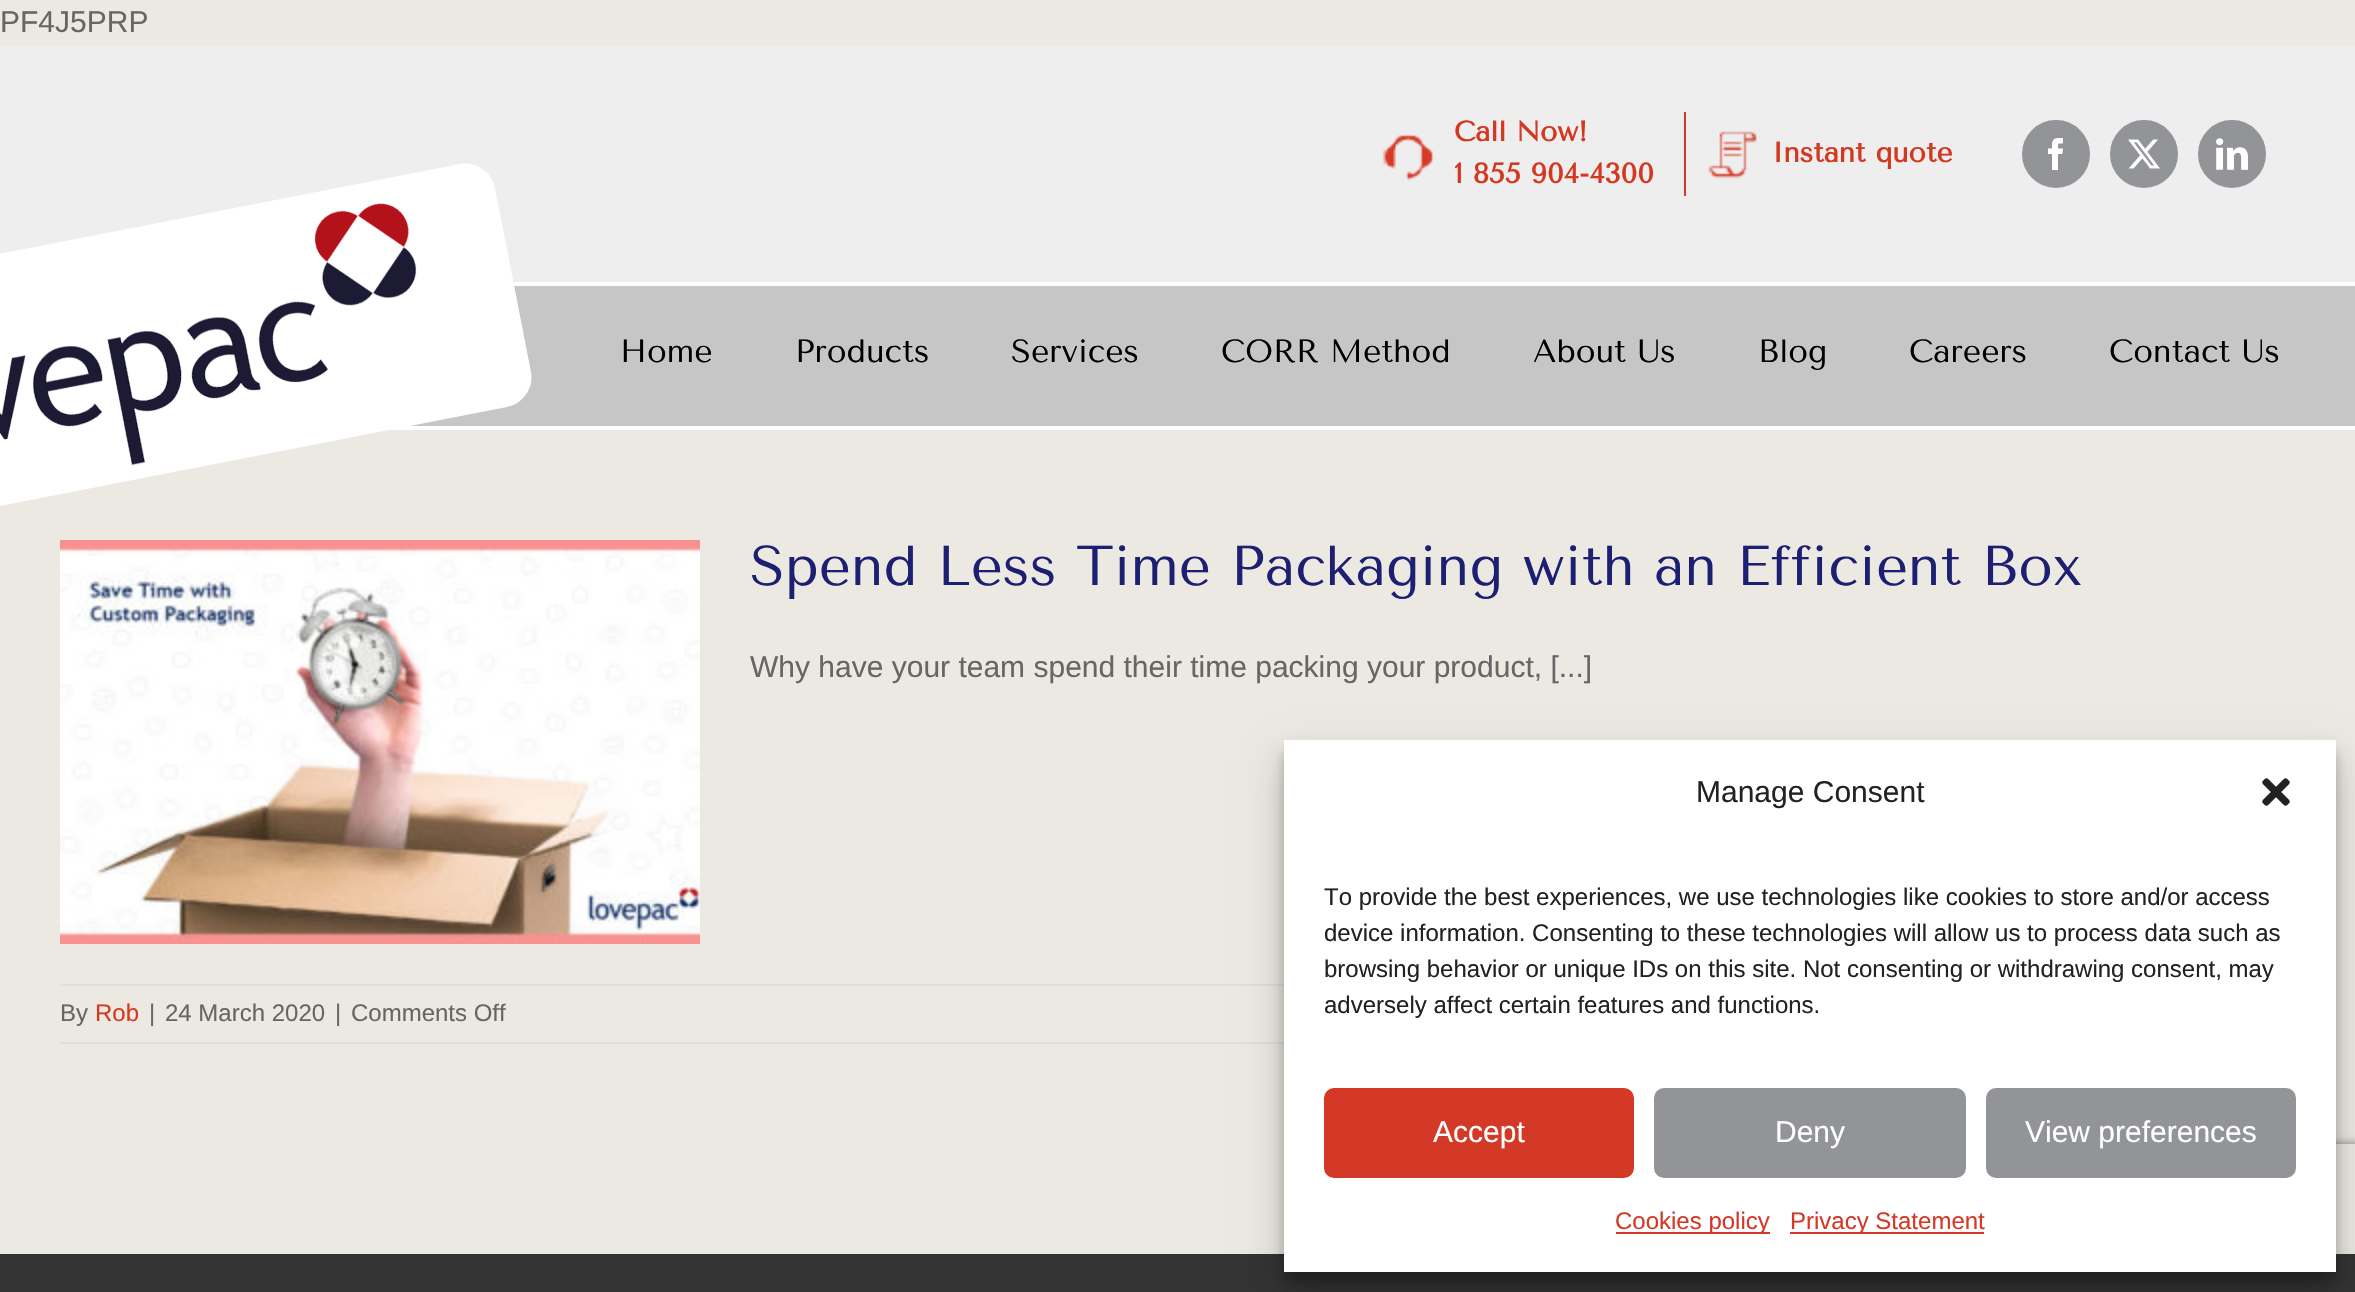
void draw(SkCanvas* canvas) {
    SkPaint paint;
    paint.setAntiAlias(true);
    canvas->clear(0xFFECE8E2);
    SkFont font1(fontMgr->matchFamilyStyle("Liberation Sans", SkFontStyle::Normal()), 30);
    font1.setSubpixel(true);
    paint.setColor(0xFF666666);
    canvas->drawString("PF4J5PRP", 0, 32, font1, paint);
    paint.setColor(0xFFEEEEEE);
    canvas->drawRect(SkRect::MakeXYWH(0, 46, 2355, 236), paint);
    paint.setColor(0xFFFFFFFF);
    canvas->drawRect(SkRect::MakeXYWH(513, 282, 1842, 4), paint);
    canvas->drawImageRect(SkImages::DeferredFromEncodedData(SkData::MakeFromFileName("img1.png")), SkRect::MakeXYWH(1382, 134, 52, 47), SkSamplingOptions());
    paint.setColor(0xFFD43927);
    canvas->drawRect(SkRect::MakeXYWH(1684, 112, 2, 84), paint);
    SkFont font2(fontMgr->matchFamilyStyle("Tenor Sans", SkFontStyle::Bold()), 28);
    font2.setSubpixel(true);
    paint.setColor(0xFFD43820);
    canvas->drawString("Call Now!", 1454, 141, font2, paint);
    canvas->drawString("1 855 904-4300", 1454, 183, font2, paint);
    canvas->drawImageRect(SkImages::DeferredFromEncodedData(SkData::MakeFromFileName("img2.png")), SkRect::MakeXYWH(1708, 131, 49, 48), SkSamplingOptions());
    canvas->drawString("Instant quote", 1772, 162, font2, paint);
    paint.setColor(0xFF929497);
    canvas->drawCircle(2056, 154, 33, paint);
    paint.setStyle(SkPaint::kStroke_Style);
    paint.setStrokeWidth(2);
    canvas->drawCircle(2056, 154, 33, paint);
    canvas->drawImageRect(SkImages::DeferredFromEncodedData(SkData::MakeFromFileName("img3.png")), SkRect::MakeXYWH(2048, 138, 15, 32), SkSamplingOptions());
    paint.setStyle(SkPaint::kFill_Style);
    canvas->drawCircle(2144, 154, 33, paint);
    paint.setStyle(SkPaint::kStroke_Style);
    canvas->drawCircle(2144, 154, 33, paint);
    canvas->drawImageRect(SkImages::DeferredFromEncodedData(SkData::MakeFromFileName("img4.png")), SkRect::MakeXYWH(2128, 139, 32, 30), SkSamplingOptions());
    paint.setStyle(SkPaint::kFill_Style);
    canvas->drawCircle(2232, 154, 33, paint);
    paint.setStyle(SkPaint::kStroke_Style);
    canvas->drawCircle(2232, 154, 33, paint);
    canvas->drawImageRect(SkImages::DeferredFromEncodedData(SkData::MakeFromFileName("img5.png")), SkRect::MakeXYWH(2216, 138, 32, 32), SkSamplingOptions());
    paint.setStyle(SkPaint::kFill_Style);
    paint.setColor(0xFFC6C6C6);
    canvas->drawRect(SkRect::MakeXYWH(409, 286, 1946, 140), paint);
    paint.setColor(0xFFFFFFFF);
    canvas->drawRect(SkRect::MakeXYWH(389, 426, 1966, 4), paint);
    canvas->drawPath(SkPathBuilder().moveTo(-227, 298).lineTo(460, 164).cubicTo(476, 161, 492, 172, 495, 188).lineTo(531, 372).cubicTo(534, 388, 523, 404, 507, 407).lineTo(-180, 541).cubicTo(-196, 544, -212, 533, -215, 517).lineTo(-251, 333).cubicTo(-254, 317, -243, 301, -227, 298).close().detach(), paint);
    canvas->drawImageRect(SkImages::DeferredFromEncodedData(SkData::MakeFromFileName("img6.png")), SkRect::MakeXYWH(0, 203, 417, 263), SkSamplingOptions());
    SkFont font3(fontMgr->matchFamilyStyle("Tenor Sans", SkFontStyle::Normal()), 32);
    font3.setSubpixel(true);
    paint.setColor(0xFF000000);
    canvas->drawString("Home", 620, 362, font3, paint);
    canvas->drawString("Products", 795, 362, font3, paint);
    canvas->drawString("Services", 1011, 362, font3, paint);
    canvas->drawString("CORR Method", 1221, 362, font3, paint);
    canvas->drawString("About Us", 1533, 362, font3, paint);
    canvas->drawString("Blog", 1758, 362, font3, paint);
    canvas->drawString("Careers", 1909, 362, font3, paint);
    canvas->drawString("Contact Us", 2109, 362, font3, paint);
    canvas->drawImageRect(SkImages::DeferredFromEncodedData(SkData::MakeFromFileName("img7.png")), SkRect::MakeXYWH(60, 540, 640, 404), SkSamplingOptions());
    SkFont font4(fontMgr->matchFamilyStyle("Tenor Sans", SkFontStyle::Normal()), 56);
    font4.setSubpixel(true);
    paint.setColor(0xFF1C1F72);
    canvas->drawString("Spend Less Time Packaging with an Efficient Box", 750, 585, font4, paint);
    paint.setColor(0xFF666666);
    canvas->drawString("Why have your team spend their time packing your product, [...]", 750, 677, font1, paint);
    paint.setColor(0xFFE0DEDE);
    canvas->drawRect(SkRect::MakeXYWH(60, 984, 1224, 2), paint);
    canvas->drawRect(SkRect::MakeXYWH(60, 1042, 1224, 2), paint);
    SkFont font5(fontMgr->matchFamilyStyle("Liberation Sans", SkFontStyle::Normal()), 24);
    font5.setSubpixel(true);
    paint.setColor(0xFF666666);
    canvas->drawString("By", 60, 1021, font5, paint);
    paint.setColor(0xFFD43820);
    canvas->drawString("Rob", 95, 1021, font5, paint);
    paint.setColor(0xFF666666);
    canvas->drawString("|", 149, 1021, font5, paint);
    canvas->drawString("24 March 2020", 165, 1021, font5, paint);
    canvas->drawString("|", 335, 1021, font5, paint);
    canvas->drawString("Comments Off", 351, 1021, font5, paint);
    canvas->save();
    canvas->clipRect(SkRect::MakeXYWH(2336, 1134, 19, 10));
    paint.setColor(0xFF808080);
    paint.setMaskFilter(SkMaskFilter::MakeBlur(kNormal_SkBlurStyle, 5));
    canvas->drawRoundRect(SkRect::MakeXYWH(2216, 1144, 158, 120), 4, 4, paint);
    paint.setMaskFilter(nullptr);
    canvas->restore();
    paint.setColor(0xFF333333);
    canvas->drawRect(SkRect::MakeXYWH(0, 1254, 2355, 38), paint);
    paint.setColor(0x3B000000);
    paint.setMaskFilter(SkMaskFilter::MakeBlur(kNormal_SkBlurStyle, 6));
    canvas->drawRect(SkRect::MakeXYWH(1284, 752, 1052, 532), paint);
    paint.setMaskFilter(nullptr);
    paint.setColor(0x30000000);
    paint.setMaskFilter(SkMaskFilter::MakeBlur(kNormal_SkBlurStyle, 20));
    canvas->drawRect(SkRect::MakeXYWH(1284, 760, 1052, 532), paint);
    paint.setMaskFilter(nullptr);
    paint.setColor(0xFFFFFFFF);
    canvas->drawRect(SkRect::MakeXYWH(1284, 740, 1052, 532), paint);
    paint.setColor(0xFF222222);
    canvas->drawString("Manage Consent", 1696, 802, font1, paint);
    canvas->drawImageRect(SkImages::DeferredFromEncodedData(SkData::MakeFromFileName("img8.png")), SkRect::MakeXYWH(2262, 778, 28, 28), SkSamplingOptions());
    canvas->drawString("To provide the best experiences, we use technologies like cookies to store and/or access", 1324, 905, font5, paint);
    canvas->drawString("device information. Consenting to these technologies will allow us to process data such as", 1324, 941, font5, paint);
    canvas->drawString("browsing behavior or unique IDs on this site. Not consenting or withdrawing consent, may", 1324, 977, font5, paint);
    canvas->drawString("adversely affect certain features and functions.", 1324, 1013, font5, paint);
    paint.setColor(0xFFD43927);
    canvas->drawRoundRect(SkRect::MakeXYWH(1325, 1089, 308, 88), 9, 9, paint);
    paint.setStyle(SkPaint::kStroke_Style);
    canvas->drawRoundRect(SkRect::MakeXYWH(1325, 1089, 308, 88), 9, 9, paint);
    paint.setStyle(SkPaint::kFill_Style);
    paint.setColor(0xFFFFFFFF);
    canvas->drawString("Accept", 1433, 1142, font1, paint);
    paint.setColor(0xFF929497);
    canvas->drawRoundRect(SkRect::MakeXYWH(1655, 1089, 310, 88), 9, 9, paint);
    paint.setStyle(SkPaint::kStroke_Style);
    canvas->drawRoundRect(SkRect::MakeXYWH(1655, 1089, 310, 88), 9, 9, paint);
    paint.setStyle(SkPaint::kFill_Style);
    paint.setColor(0xFFFFFFFF);
    canvas->drawString("Deny", 1775, 1142, font1, paint);
    paint.setColor(0xFF929497);
    canvas->drawRoundRect(SkRect::MakeXYWH(1987, 1089, 308, 88), 9, 9, paint);
    paint.setStyle(SkPaint::kStroke_Style);
    canvas->drawRoundRect(SkRect::MakeXYWH(1987, 1089, 308, 88), 9, 9, paint);
    paint.setStyle(SkPaint::kFill_Style);
    paint.setColor(0xFFFFFFFF);
    canvas->drawString("View preferences", 2025, 1142, font1, paint);
    paint.setColor(0xFFD43927);
    canvas->drawRect(SkRect::MakeXYWH(1616, 1232, 154, 2), paint);
    canvas->drawString("Cookies policy", 1615, 1229, font5, paint);
    canvas->drawRect(SkRect::MakeXYWH(1790, 1232, 194, 2), paint);
    canvas->drawString("Privacy Statement", 1790, 1229, font5, paint);
}
